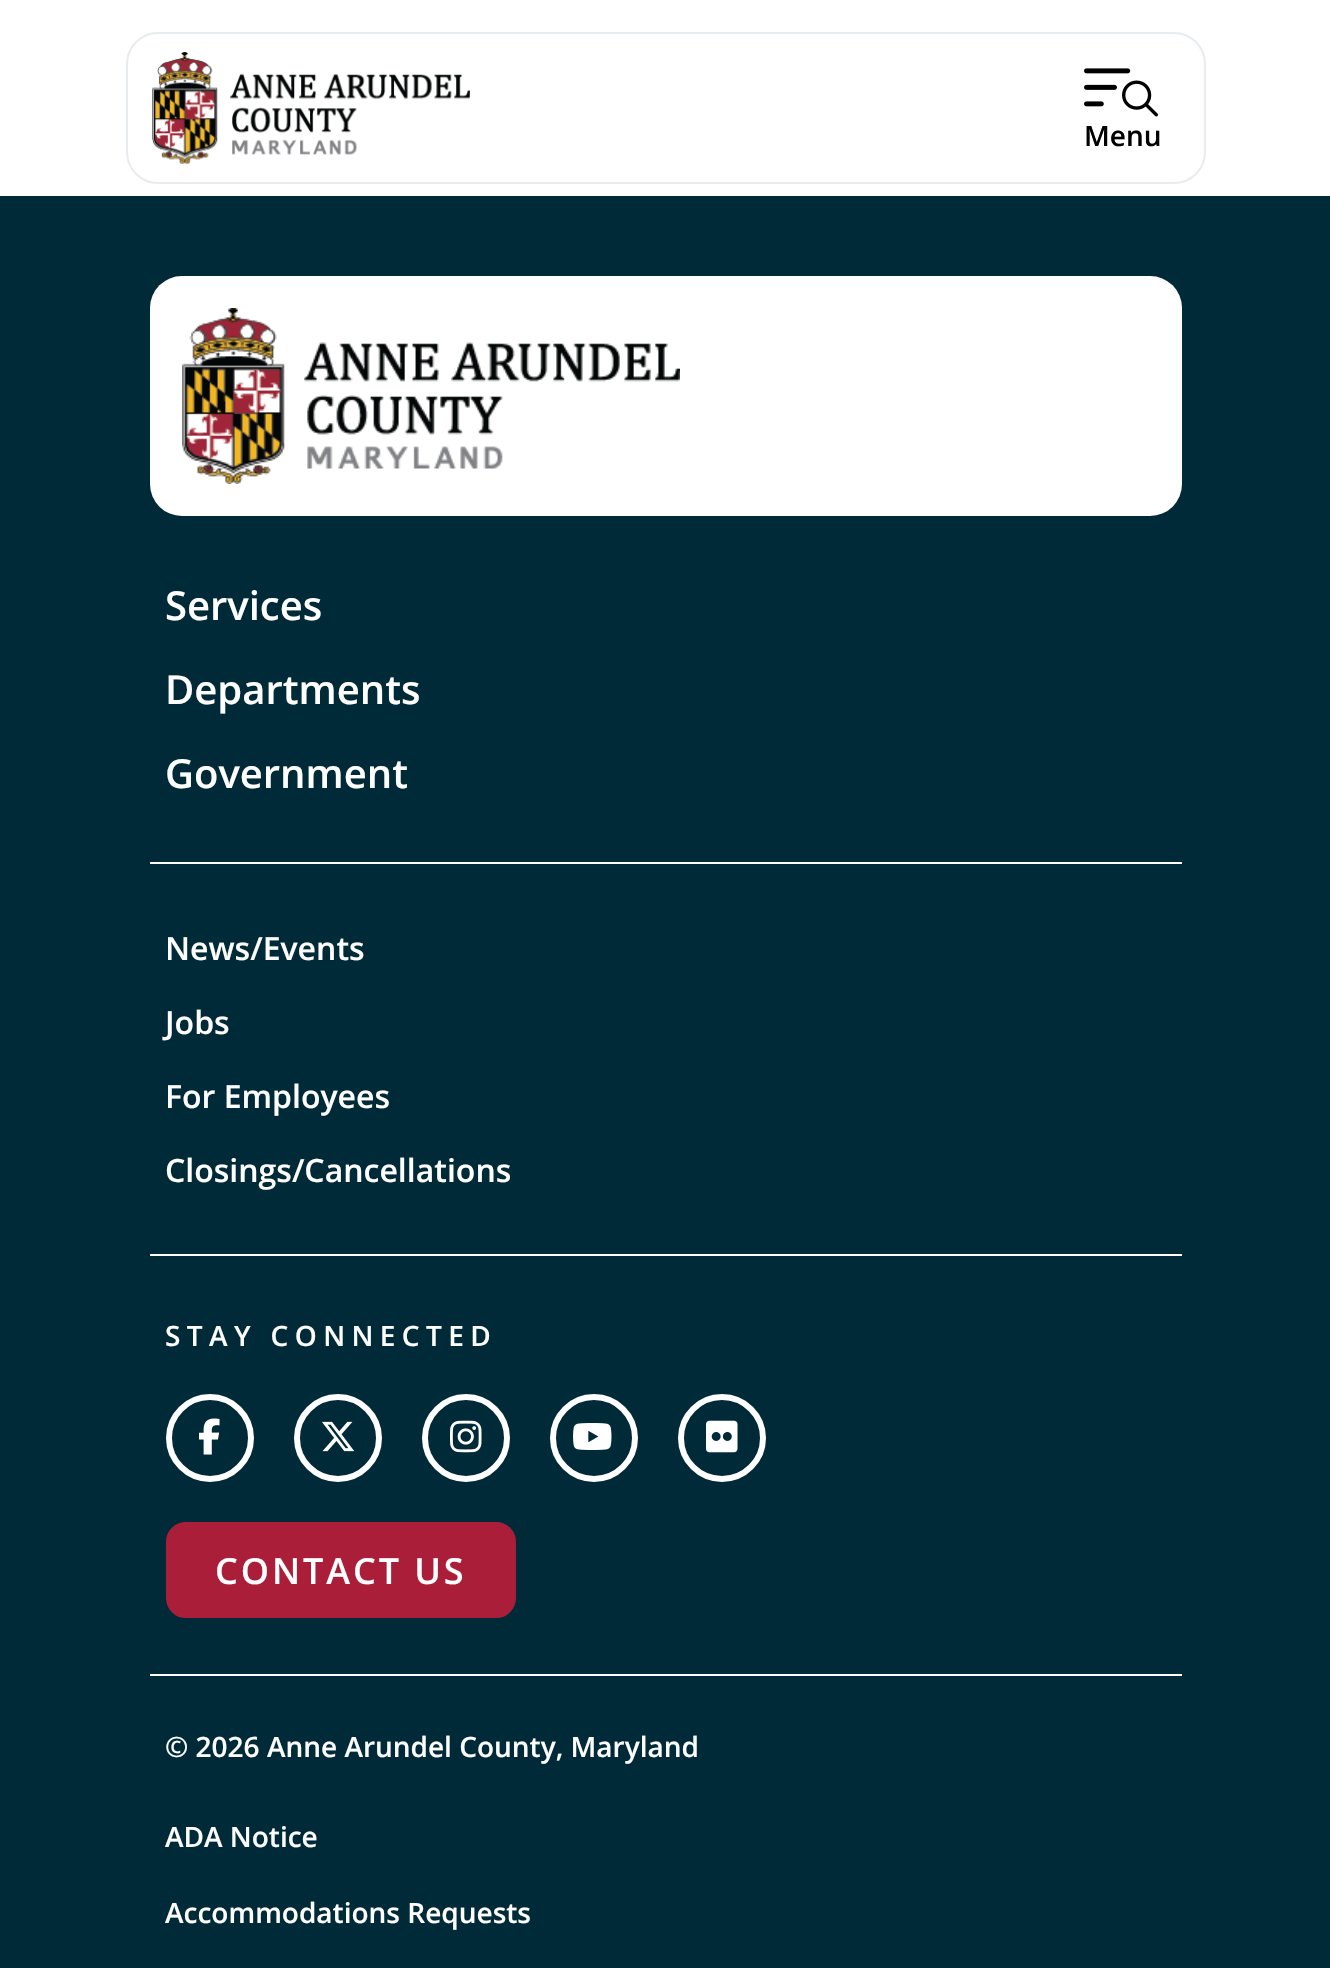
void draw(SkCanvas* canvas) {
    SkPaint paint;
    paint.setAntiAlias(true);
    auto spacedText = [&](const char* s, float x, float y, const SkFont& font, const SkPaint& ink, float letter, float word) {
        std::vector<SkGlyphID> glyphs(font.countText(s, strlen(s), SkTextEncoding::kUTF8));
        std::vector<float> xs(glyphs.size());
        font.textToGlyphs(s, strlen(s), SkTextEncoding::kUTF8, glyphs);
        font.getXPos(glyphs, xs, x);
        float extra = 0;
        for (size_t i = 0; i < glyphs.size(); i++) {
            xs[i] += extra;
            extra += letter + word * (glyphs[i] == font.unicharToGlyph(' '));
        }
        canvas->drawTextBlob(SkTextBlob::MakeFromPosHGlyphs(glyphs, xs, y, font), 0, 0, ink);
    };
    canvas->clear(0xFFFFFFFF);
    paint.setStyle(SkPaint::kStroke_Style);
    paint.setStrokeWidth(2);
    paint.setColor(0xFFE9ECEF);
    canvas->drawRoundRect(SkRect::MakeXYWH(127, 33, 1078, 150), 31, 31, paint);
    canvas->drawImageRect(SkImages::DeferredFromEncodedData(SkData::MakeFromFileName("img1.png")), SkRect::MakeXYWH(152, 52, 318, 112), SkSamplingOptions());
    canvas->drawImageRect(SkImages::DeferredFromEncodedData(SkData::MakeFromFileName("img2.png")), SkRect::MakeXYWH(1084, 68, 47, 39), SkSamplingOptions());
    canvas->drawImageRect(SkImages::DeferredFromEncodedData(SkData::MakeFromFileName("img3.png")), SkRect::MakeXYWH(1122, 80, 36, 37), SkSamplingOptions());
    SkFont font1(fontMgr->matchFamilyStyle("Open Sans", SkFontStyle(600, SkFontStyle::kNormal_Width, SkFontStyle::kUpright_Slant)), 28);
    font1.setSubpixel(true);
    paint.setStyle(SkPaint::kFill_Style);
    paint.setColor(0xFF000000);
    canvas->drawString("Menu", 1084, 146, font1, paint);
    paint.setColor(0xFF002A38);
    canvas->drawRect(SkRect::MakeXYWH(0, 196, 1330, 1772), paint);
    paint.setColor(0xFFFFFFFF);
    canvas->drawRoundRect(SkRect::MakeXYWH(150, 276, 1032, 240), 32, 32, paint);
    canvas->drawImageRect(SkImages::DeferredFromEncodedData(SkData::MakeFromFileName("img4.png")), SkRect::MakeXYWH(182, 308, 498, 176), SkSamplingOptions());
    SkFont font2(fontMgr->matchFamilyStyle("Open Sans", SkFontStyle(600, SkFontStyle::kNormal_Width, SkFontStyle::kUpright_Slant)), 40);
    font2.setSubpixel(true);
    canvas->drawString("Services", 165, 620, font2, paint);
    canvas->drawString("Departments", 165, 704, font2, paint);
    canvas->drawString("Government", 165, 788, font2, paint);
    canvas->drawRect(SkRect::MakeXYWH(150, 862, 1032, 2), paint);
    SkFont font3(fontMgr->matchFamilyStyle("Open Sans", SkFontStyle(600, SkFontStyle::kNormal_Width, SkFontStyle::kUpright_Slant)), 32);
    font3.setSubpixel(true);
    canvas->drawString("News/Events", 165, 960, font3, paint);
    canvas->drawString("Jobs", 165, 1034, font3, paint);
    canvas->drawString("For Employees", 165, 1108, font3, paint);
    canvas->drawString("Closings/Cancellations", 165, 1182, font3, paint);
    canvas->drawRect(SkRect::MakeXYWH(150, 1254, 1032, 2), paint);
    spacedText("STAY CONNECTED", 165, 1346, font1, paint, 6.4f, 0);
    paint.setStyle(SkPaint::kStroke_Style);
    paint.setStrokeWidth(6);
    canvas->drawCircle(210, 1438, 41, paint);
    canvas->drawImageRect(SkImages::DeferredFromEncodedData(SkData::MakeFromFileName("img5.png")), SkRect::MakeXYWH(199, 1418, 21, 37), SkSamplingOptions());
    canvas->drawCircle(338, 1438, 41, paint);
    canvas->drawImageRect(SkImages::DeferredFromEncodedData(SkData::MakeFromFileName("img6.png")), SkRect::MakeXYWH(322, 1421, 33, 31), SkSamplingOptions());
    canvas->drawCircle(466, 1438, 41, paint);
    canvas->drawImageRect(SkImages::DeferredFromEncodedData(SkData::MakeFromFileName("img7.png")), SkRect::MakeXYWH(450, 1420, 32, 33), SkSamplingOptions());
    canvas->drawCircle(594, 1438, 41, paint);
    canvas->drawImageRect(SkImages::DeferredFromEncodedData(SkData::MakeFromFileName("img8.png")), SkRect::MakeXYWH(573, 1423, 39, 27), SkSamplingOptions());
    canvas->drawCircle(722, 1438, 41, paint);
    canvas->drawImageRect(SkImages::DeferredFromEncodedData(SkData::MakeFromFileName("img9.png")), SkRect::MakeXYWH(706, 1420, 32, 33), SkSamplingOptions());
    paint.setStyle(SkPaint::kFill_Style);
    paint.setColor(0xFFAB1E39);
    canvas->drawRoundRect(SkRect::MakeXYWH(167, 1523, 348, 94), 19, 19, paint);
    paint.setStyle(SkPaint::kStroke_Style);
    paint.setStrokeWidth(2);
    canvas->drawRoundRect(SkRect::MakeXYWH(167, 1523, 348, 94), 19, 19, paint);
    SkFont font4(fontMgr->matchFamilyStyle("Open Sans", SkFontStyle(600, SkFontStyle::kNormal_Width, SkFontStyle::kUpright_Slant)), 36);
    font4.setSubpixel(true);
    paint.setStyle(SkPaint::kFill_Style);
    paint.setColor(0xFFFFFFFF);
    spacedText("CONTACT US", 215, 1584, font4, paint, 2.9f, 0);
    canvas->drawRect(SkRect::MakeXYWH(150, 1674, 1032, 2), paint);
    canvas->drawString("© 2026 Anne Arundel County, Maryland", 165, 1757, font1, paint);
    canvas->drawString("ADA Notice", 165, 1847, font1, paint);
    canvas->drawString("Accommodations Requests", 165, 1923, font1, paint);
}
